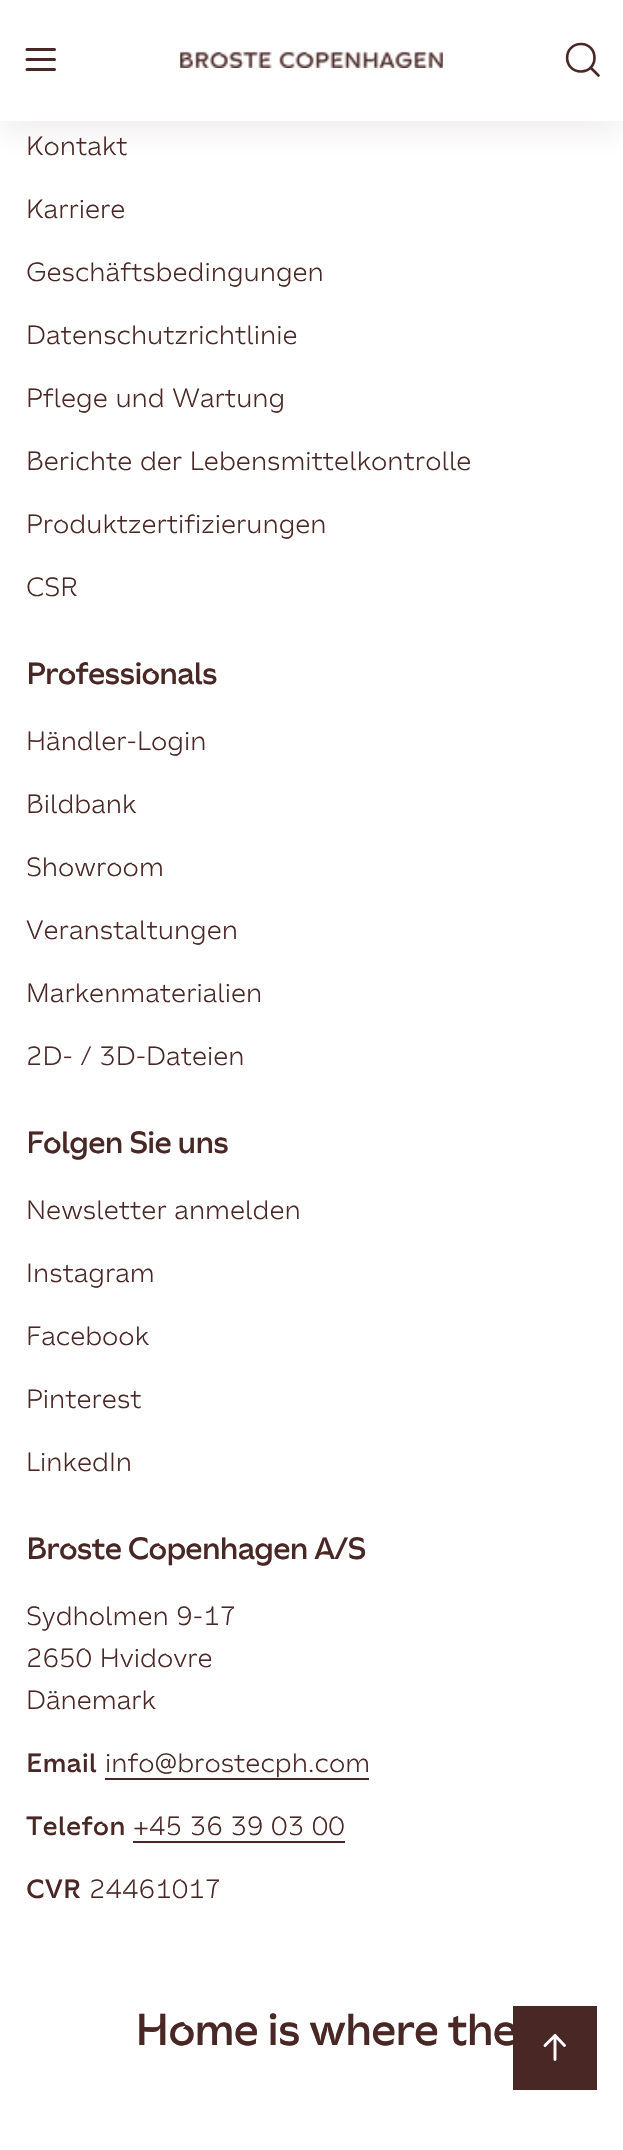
void draw(SkCanvas* canvas) {
    SkPaint paint;
    paint.setAntiAlias(true);
    auto spacedText = [&](const char* s, float x, float y, const SkFont& font, const SkPaint& ink, float letter, float word) {
        std::vector<SkGlyphID> glyphs(font.countText(s, strlen(s), SkTextEncoding::kUTF8));
        std::vector<float> xs(glyphs.size());
        font.textToGlyphs(s, strlen(s), SkTextEncoding::kUTF8, glyphs);
        font.getXPos(glyphs, xs, x);
        float extra = 0;
        for (size_t i = 0; i < glyphs.size(); i++) {
            xs[i] += extra;
            extra += letter + word * (glyphs[i] == font.unicharToGlyph(' '));
        }
        canvas->drawTextBlob(SkTextBlob::MakeFromPosHGlyphs(glyphs, xs, y, font), 0, 0, ink);
    };
    canvas->clear(0xFFFFFFFF);
    paint.setColor(0x1A492725);
    paint.setMaskFilter(SkMaskFilter::MakeBlur(kNormal_SkBlurStyle, 16));
    canvas->drawRect(SkRect::MakeXYWH(0, 7, 623, 121), paint);
    paint.setMaskFilter(nullptr);
    paint.setColor(0xFFFFFFFF);
    canvas->drawRect(SkRect::MakeXYWH(0, 0, 623, 121), paint);
    paint.setStyle(SkPaint::kStroke_Style);
    paint.setStrokeWidth(3);
    paint.setStrokeCap(SkPaint::kRound_Cap);
    paint.setStrokeJoin(SkPaint::kRound_Join);
    paint.setColor(0xFF492725);
    canvas->drawPath(SkPathBuilder().moveTo(27, 59.5f).lineTo(54.5f, 59.5f).moveTo(27, 49.5f).lineTo(54.5f, 49.5f).moveTo(27, 69.5f).lineTo(54.5f, 69.5f).detach(), paint);
    canvas->drawImageRect(SkImages::DeferredFromEncodedData(SkData::MakeFromFileName("img1.png")), SkRect::MakeXYWH(180, 51, 263, 17), SkSamplingOptions());
    paint.setStrokeWidth(2.6f);
    canvas->drawPath(SkPathBuilder().moveTo(581, 71.5f).cubicTo(599, 71.5f, 599, 44, 581, 44).cubicTo(562.5f, 44, 562.5f, 71.5f, 581, 71.5f).close().moveTo(590.5f, 67.5f).lineTo(598.5f, 75.5f).detach(), paint);
    SkFont font1(fontMgr->matchFamilyStyle("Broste", SkFontStyle(300, SkFontStyle::kNormal_Width, SkFontStyle::kUpright_Slant)), 26.25f);
    font1.setSubpixel(true);
    paint.setStyle(SkPaint::kFill_Style);
    canvas->drawString("Kontakt", 26, 155, font1, paint);
    canvas->drawString("Karriere", 26, 218, font1, paint);
    canvas->drawString("Geschäftsbedingungen", 26, 281, font1, paint);
    canvas->drawString("Datenschutzrichtlinie", 26, 344, font1, paint);
    canvas->drawString("Pflege und Wartung", 26, 407, font1, paint);
    canvas->drawString("Berichte der Lebensmittelkontrolle", 26, 470, font1, paint);
    canvas->drawString("Produktzertifizierungen", 26, 533, font1, paint);
    canvas->drawString("CSR", 26, 596, font1, paint);
    SkFont font2(fontMgr->matchFamilyStyle("Broste", SkFontStyle::Bold()), 30.75f);
    font2.setSubpixel(true);
    spacedText("Professionals", 26, 684, font2, paint, -1.25f, 0);
    canvas->drawString("Händler-Login", 26, 750, font1, paint);
    canvas->drawString("Bildbank", 26, 813, font1, paint);
    canvas->drawString("Showroom", 26, 876, font1, paint);
    canvas->drawString("Veranstaltungen", 26, 939, font1, paint);
    canvas->drawString("Markenmaterialien", 26, 1002, font1, paint);
    canvas->drawString("2D- / 3D-Dateien", 26, 1065, font1, paint);
    spacedText("Folgen Sie uns", 26, 1153, font2, paint, -1.25f, 0);
    canvas->drawString("Newsletter anmelden", 26, 1219, font1, paint);
    canvas->drawString("Instagram", 26, 1282, font1, paint);
    canvas->drawString("Facebook", 26, 1345, font1, paint);
    canvas->drawString("Pinterest", 26, 1408, font1, paint);
    canvas->drawString("LinkedIn", 26, 1471, font1, paint);
    spacedText("Broste Copenhagen A/S", 26, 1559, font2, paint, -1.25f, 0);
    canvas->drawString("Sydholmen 9-17", 26, 1625, font1, paint);
    canvas->drawString("2650 Hvidovre", 26, 1667, font1, paint);
    canvas->drawString("Dänemark", 26, 1709, font1, paint);
    SkFont font3(fontMgr->matchFamilyStyle("Broste", SkFontStyle::Bold()), 26.25f);
    font3.setSubpixel(true);
    canvas->drawString("Email", 26, 1772, font3, paint);
    canvas->drawString("info@brostecph.com", 105, 1772, font1, paint);
    canvas->drawRect(SkRect::MakeXYWH(105, 1778, 264, 2), paint);
    canvas->drawString("Telefon", 26, 1835, font3, paint);
    canvas->drawString("+45 36 39 03 00", 133, 1835, font1, paint);
    canvas->drawRect(SkRect::MakeXYWH(133, 1841, 212, 2), paint);
    canvas->drawString("CVR", 26, 1898, font3, paint);
    canvas->drawString("24461017", 89, 1898, font1, paint);
    SkFont font4(fontMgr->matchFamilyStyle("Broste", SkFontStyle::Bold()), 44.75f);
    font4.setSubpixel(true);
    spacedText("Home is where the", 135, 2045, font4, paint, -1.75f, 0);
    canvas->drawRect(SkRect::MakeXYWH(513, 2006, 84, 84), paint);
    paint.setStyle(SkPaint::kStroke_Style);
    paint.setStrokeWidth(2.9f);
    paint.setColor(0xFFFFFFFF);
    canvas->drawPath(SkPathBuilder().moveTo(555, 2059.5f).lineTo(555, 2035.5f).moveTo(545, 2045.5f).lineTo(555, 2035.5f).lineTo(564.5f, 2045.5f).detach(), paint);
}
